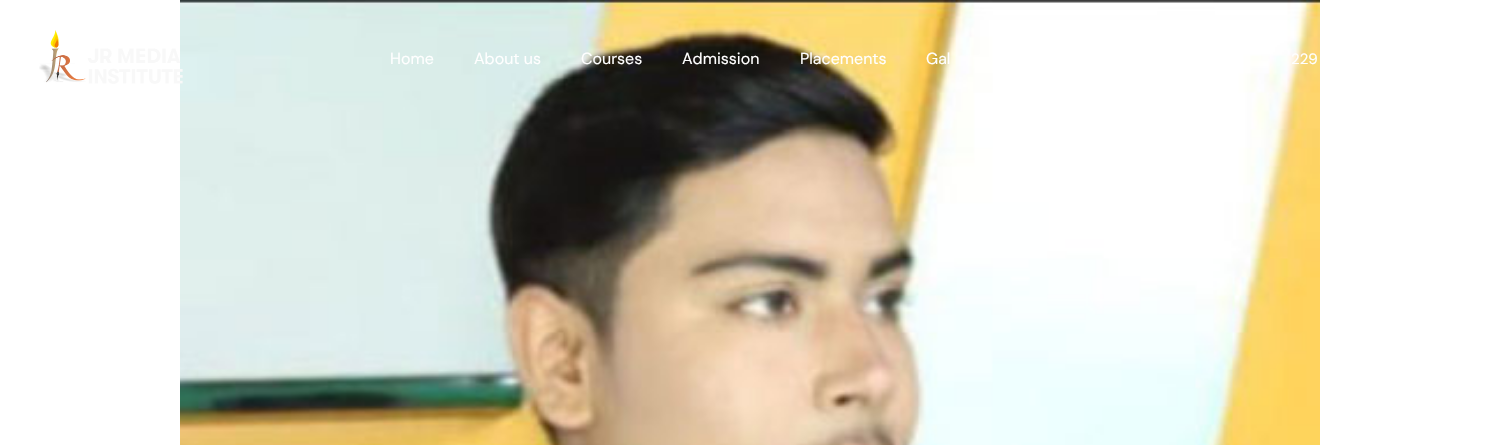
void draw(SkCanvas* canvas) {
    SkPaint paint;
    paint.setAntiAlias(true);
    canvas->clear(0xFFFFFFFF);
    canvas->drawImageRect(SkImages::DeferredFromEncodedData(SkData::MakeFromFileName("img1.png")), SkRect::MakeXYWH(180, 0, 1140, 445), SkSamplingOptions());
    canvas->drawImageRect(SkImages::DeferredFromEncodedData(SkData::MakeFromFileName("img2.png")), SkRect::MakeXYWH(39, 30, 144, 54), SkSamplingOptions());
    SkFont font1(fontMgr->matchFamilyStyle("DM Sans", SkFontStyle::Normal()), 16);
    font1.setSubpixel(true);
    paint.setColor(0xFFFFFFFF);
    canvas->drawString("Home", 390, 64, font1, paint);
    canvas->drawString("About us", 474, 64, font1, paint);
    canvas->drawString("Courses", 581, 64, font1, paint);
    canvas->drawString("Admission", 682, 64, font1, paint);
    canvas->drawString("Placements", 800, 64, font1, paint);
    canvas->drawString("Gal", 926, 64, font1, paint);
    SkFont font2(fontMgr->matchFamilyStyle("DM Sans", SkFontStyle::Normal()), 15);
    font2.setSubpixel(true);
    canvas->drawString("229", 1291, 64, font2, paint);
}
